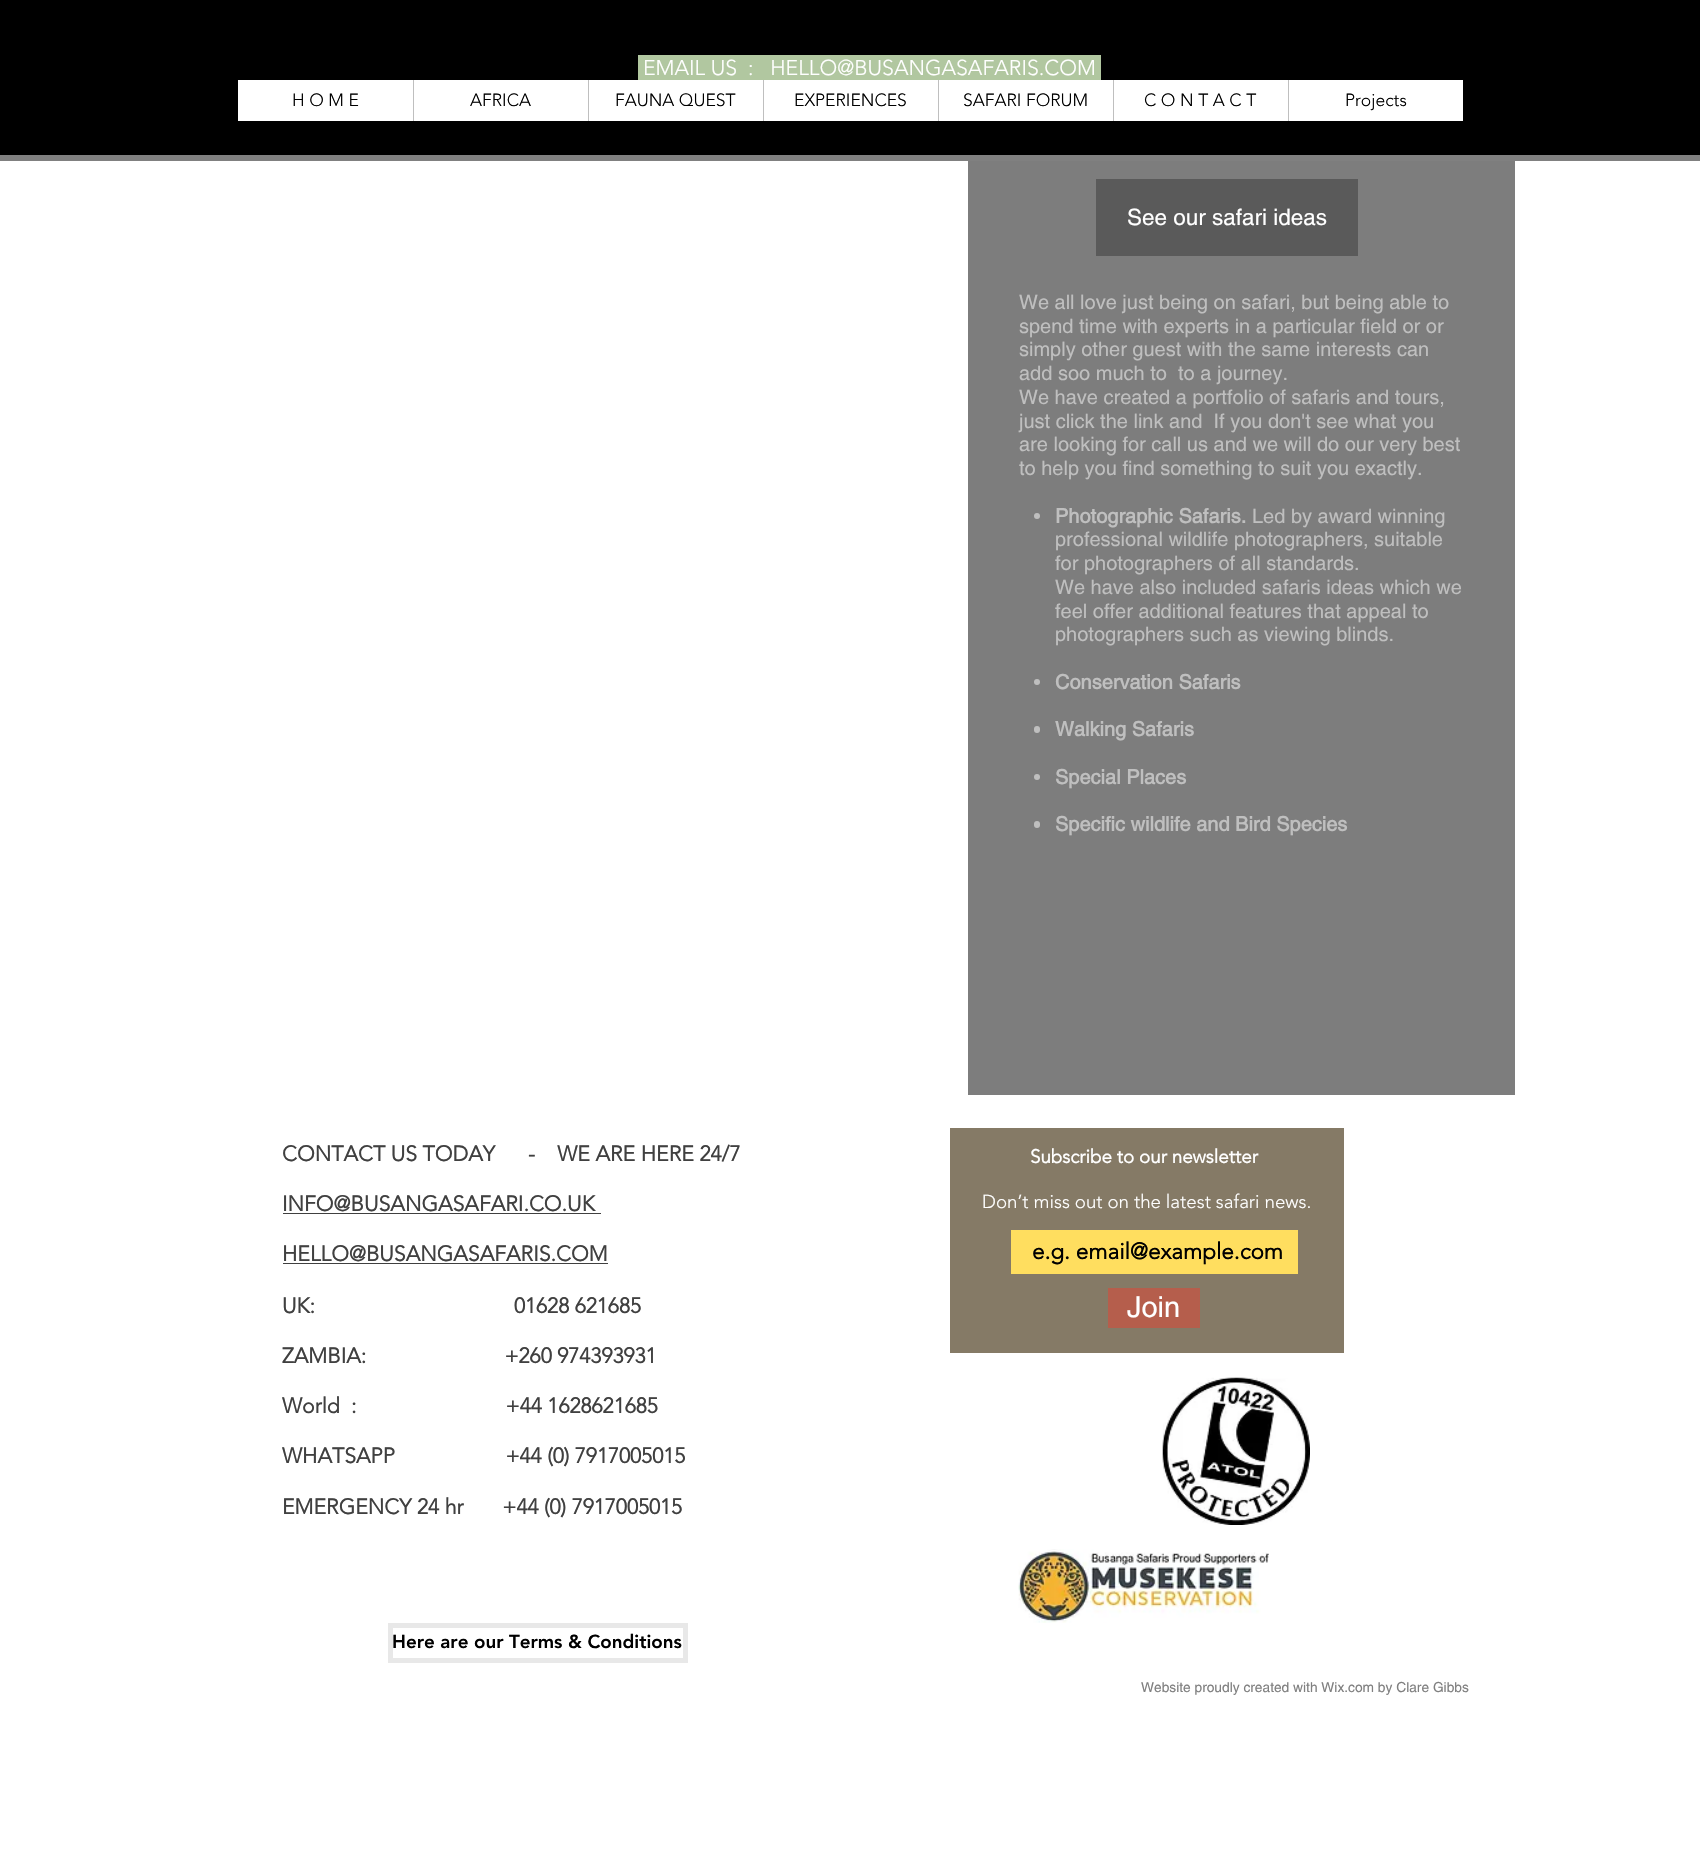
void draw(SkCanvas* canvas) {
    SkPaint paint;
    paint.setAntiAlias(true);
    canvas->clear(0xFFFFFFFF);
    paint.setColor(0xFF000000);
    canvas->drawRect(SkRect::MakeXYWH(0, 0, 1700, 155), paint);
    paint.setColor(0xFF808080);
    canvas->drawRect(SkRect::MakeXYWH(0, 155, 1700, 6), paint);
    paint.setColor(0xFFB1C7A0);
    canvas->drawRect(SkRect::MakeXYWH(638, 55, 463, 25), paint);
    SkFont font1(fontMgr->matchFamilyStyle("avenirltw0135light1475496", SkFontStyle(300, SkFontStyle::kNormal_Width, SkFontStyle::kUpright_Slant)), 21.25f);
    font1.setSubpixel(true);
    paint.setColor(0xFFFFFFFF);
    canvas->drawString("EMAIL US  :   HELLO@BUSANGASAFARIS.COM", 643, 75, font1, paint);
    canvas->drawRect(SkRect::MakeXYWH(238, 80, 1225, 41), paint);
    SkFont font2(fontMgr->matchFamilyStyle("avenirltw0135light1475496", SkFontStyle(300, SkFontStyle::kNormal_Width, SkFontStyle::kUpright_Slant)), 17.5f);
    font2.setSubpixel(true);
    paint.setColor(0xFF000000);
    canvas->drawString("H O M E", 292, 106, font2, paint);
    paint.setColor(0xFFBFBFBF);
    canvas->drawRect(SkRect::MakeXYWH(413, 80, 1, 41), paint);
    paint.setColor(0xFF000000);
    canvas->drawString("AFRICA", 470, 106, font2, paint);
    paint.setColor(0xFFBFBFBF);
    canvas->drawRect(SkRect::MakeXYWH(588, 80, 1, 41), paint);
    paint.setColor(0xFF000000);
    canvas->drawString("FAUNA QUEST", 615, 106, font2, paint);
    paint.setColor(0xFFBFBFBF);
    canvas->drawRect(SkRect::MakeXYWH(763, 80, 1, 41), paint);
    paint.setColor(0xFF000000);
    canvas->drawString("EXPERIENCES", 794, 106, font2, paint);
    paint.setColor(0xFFBFBFBF);
    canvas->drawRect(SkRect::MakeXYWH(938, 80, 1, 41), paint);
    paint.setColor(0xFF000000);
    canvas->drawString("SAFARI FORUM", 963, 106, font2, paint);
    paint.setColor(0xFFBFBFBF);
    canvas->drawRect(SkRect::MakeXYWH(1113, 80, 1, 41), paint);
    paint.setColor(0xFF000000);
    canvas->drawString("C O N T A C T", 1144, 106, font2, paint);
    paint.setColor(0xFFBFBFBF);
    canvas->drawRect(SkRect::MakeXYWH(1288, 80, 1, 41), paint);
    paint.setColor(0xFF000000);
    canvas->drawString("Projects", 1345, 106, font2, paint);
    paint.setColor(0xFF7D7D7D);
    canvas->drawRect(SkRect::MakeXYWH(968, 161, 547, 934), paint);
    paint.setColor(0xFF5A5A5A);
    canvas->drawRect(SkRect::MakeXYWH(1096, 179, 262, 77), paint);
    SkFont font3(fontMgr->matchFamilyStyle("helvetica", SkFontStyle::Normal()), 22.5f);
    font3.setSubpixel(true);
    paint.setColor(0xFFFFFFFF);
    canvas->drawString("See our safari ideas", 1127, 225, font3, paint);
    SkFont font4(fontMgr->matchFamilyStyle("helvetica", SkFontStyle::Normal()), 20);
    font4.setSubpixel(true);
    paint.setColor(0xFFBFBFBF);
    canvas->drawString("We all love just being on safari, but being able to", 1019, 309, font4, paint);
    canvas->drawString("spend time with experts in a particular field or or", 1019, 333, font4, paint);
    canvas->drawString("simply other guest with the same interests can", 1019, 356, font4, paint);
    canvas->drawString("add soo much to  to a journey.", 1019, 380, font4, paint);
    canvas->drawString("We have created a portfolio of safaris and tours,", 1019, 404, font4, paint);
    canvas->drawString("just click the link and  If you don't see what you", 1019, 428, font4, paint);
    canvas->drawString("are looking for call us and we will do our very best", 1019, 451, font4, paint);
    canvas->drawString("to help you find something to suit you exactly.", 1019, 475, font4, paint);
    canvas->drawCircle(1037, 516, 3, paint);
    SkFont font5(fontMgr->matchFamilyStyle("helvetica", SkFontStyle::Bold()), 20);
    font5.setSubpixel(true);
    canvas->drawString("Photographic Safaris.", 1055, 523, font5, paint);
    canvas->drawString("Led by award winning", 1252, 523, font4, paint);
    canvas->drawString("professional wildlife photographers, suitable", 1055, 546, font4, paint);
    canvas->drawString("for photographers of all standards.", 1055, 570, font4, paint);
    canvas->drawString("We have also included safaris ideas which we", 1055, 594, font4, paint);
    canvas->drawString("feel offer additional features that appeal to", 1055, 618, font4, paint);
    canvas->drawString("photographers such as viewing blinds.", 1055, 641, font4, paint);
    canvas->drawCircle(1037, 682, 3, paint);
    canvas->drawString("Conservation Safaris", 1055, 689, font5, paint);
    canvas->drawRoundRect(SkRect::MakeXYWH(1034, 726, 6, 7), 3, 3, paint);
    canvas->drawString("Walking Safaris", 1055, 736, font5, paint);
    canvas->drawCircle(1037, 777, 3, paint);
    canvas->drawString("Special Places", 1055, 784, font5, paint);
    canvas->drawRoundRect(SkRect::MakeXYWH(1034, 821, 6, 7), 3, 3, paint);
    canvas->drawString("Specific wildlife and Bird Species", 1055, 831, font5, paint);
    SkFont font6(fontMgr->matchFamilyStyle("avenirltw0135light1475496", SkFontStyle::Bold()), 21.25f);
    font6.setSubpixel(true);
    paint.setColor(0xFF404040);
    canvas->drawString("CONTACT US TODAY      -    WE ARE HERE 24/7", 282, 1161, font6, paint);
    canvas->drawString("INFO@BUSANGASAFARI.CO.UK", 282, 1211, font6, paint);
    canvas->drawRect(SkRect::MakeXYWH(283, 1213, 318, 1), paint);
    canvas->drawString("HELLO@BUSANGASAFARIS.COM", 282, 1261, font6, paint);
    canvas->drawRect(SkRect::MakeXYWH(283, 1263, 325, 1), paint);
    canvas->drawString("UK:                                    01628 621685", 282, 1313, font6, paint);
    canvas->drawString("ZAMBIA:                         +260 974393931", 282, 1363, font6, paint);
    canvas->drawString("World  :                           +44 1628621685", 282, 1413, font6, paint);
    canvas->drawString("WHATSAPP                    +44 (0) 7917005015", 282, 1463, font6, paint);
    canvas->drawString("EMERGENCY 24 hr       +44 (0) 7917005015", 282, 1514, font6, paint);
    paint.setStyle(SkPaint::kStroke_Style);
    paint.setStrokeWidth(5);
    paint.setColor(0xFFE8E8E8);
    canvas->drawRect(SkRect::MakeXYWH(390.5f, 1625.5f, 295, 35), paint);
    SkFont font7(fontMgr->matchFamilyStyle("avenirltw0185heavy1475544", SkFontStyle(900, SkFontStyle::kNormal_Width, SkFontStyle::kUpright_Slant)), 18.75f);
    font7.setSubpixel(true);
    paint.setStyle(SkPaint::kFill_Style);
    paint.setColor(0xFF000000);
    canvas->drawString("Here are our Terms & Conditions", 392, 1648, font7, paint);
    paint.setColor(0xFF857A66);
    canvas->drawRect(SkRect::MakeXYWH(950, 1128, 394, 225), paint);
    SkFont font8(fontMgr->matchFamilyStyle("avenirltw0135light1475496", SkFontStyle::Bold()), 18.75f);
    font8.setSubpixel(true);
    paint.setColor(0xFFFFFFFF);
    canvas->drawString("Subscribe to our newsletter", 1030, 1163, font8, paint);
    SkFont font9(fontMgr->matchFamilyStyle("avenirltw0135light1475496", SkFontStyle(300, SkFontStyle::kNormal_Width, SkFontStyle::kUpright_Slant)), 18.75f);
    font9.setSubpixel(true);
    canvas->drawString("Don’t miss out on the latest safari news.", 982, 1208, font9, paint);
    paint.setColor(0xFFFFDE5F);
    canvas->drawRect(SkRect::MakeXYWH(1011, 1230, 287, 44), paint);
    SkFont font10(fontMgr->matchFamilyStyle("avenirltw0135light1475496", SkFontStyle::Bold()), 22.5f);
    font10.setSubpixel(true);
    paint.setColor(0xFF000000);
    canvas->drawString("e.g. email@example.com", 1032, 1259, font10, paint);
    paint.setColor(0xFFB55E4C);
    canvas->drawRect(SkRect::MakeXYWH(1108, 1288, 92, 40), paint);
    SkFont font11(fontMgr->matchFamilyStyle("helvetica", SkFontStyle::Normal()), 29);
    font11.setSubpixel(true);
    paint.setColor(0xFFFFFFFF);
    canvas->drawString("Join", 1127, 1317, font11, paint);
    canvas->drawImageRect(SkImages::DeferredFromEncodedData(SkData::MakeFromFileName("img1.png")), SkRect::MakeXYWH(1162, 1377, 148, 148), SkSamplingOptions());
    canvas->drawImageRect(SkImages::DeferredFromEncodedData(SkData::MakeFromFileName("img2.png")), SkRect::MakeXYWH(1018, 1549, 251, 74), SkSamplingOptions());
    SkFont font12(fontMgr->matchFamilyStyle("helvetica", SkFontStyle::Normal()), 13.75f);
    font12.setSubpixel(true);
    paint.setColor(0xFF808080);
    canvas->drawString("Website proudly created with Wix.com by Clare Gibbs", 1141, 1692, font12, paint);
}
